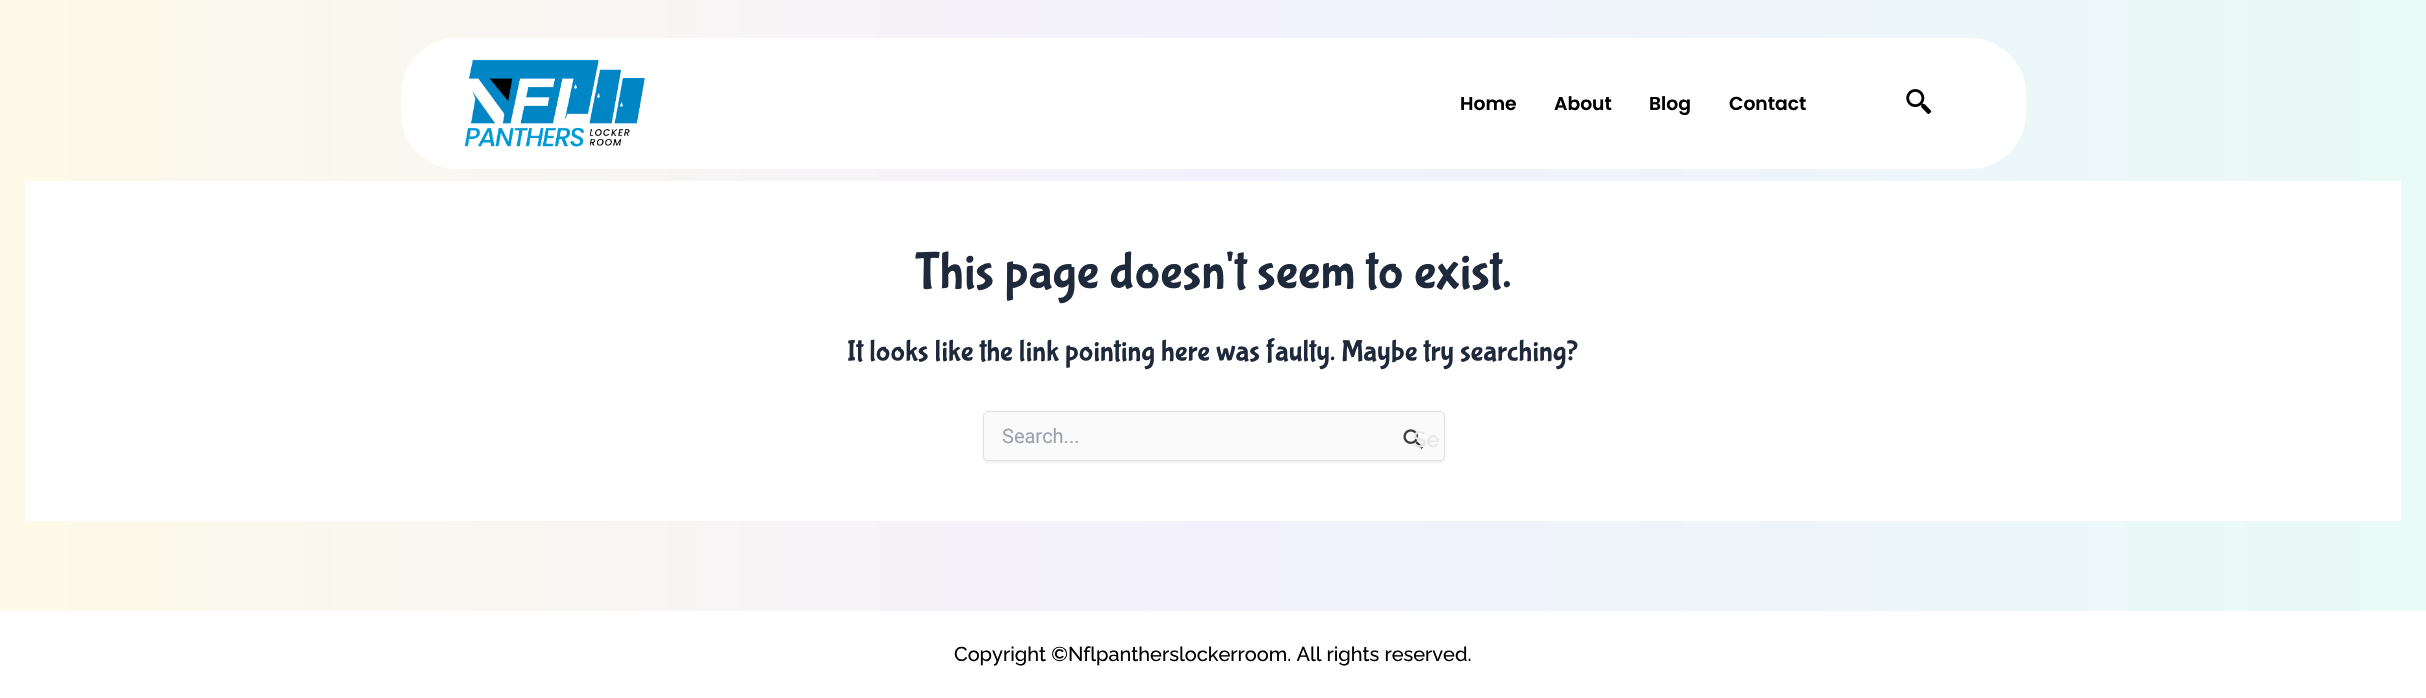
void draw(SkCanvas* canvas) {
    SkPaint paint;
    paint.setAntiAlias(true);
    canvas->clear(0xFFFFFFFF);
    {
        const SkColor colors[] = {0xFFFDFAE9, 0xFFF3F1FD, 0xFFE9FAF7};
        const float stops[] = {0, 0.5f, 1};
        const SkPoint ends[] = {{0, 349}, {2426, 349}};
        paint.setShader(SkGradientShader::MakeLinear(ends, colors, stops, 3, SkTileMode::kClamp));
        paint.setAlpha(255);
    }
    canvas->drawRect(SkRect::MakeXYWH(0, 0, 2426, 611), paint);
    paint.setShader(nullptr);
    paint.setColor(0xFFFFFFFF);
    canvas->drawRoundRect(SkRect::MakeXYWH(401, 38, 1625, 131), 56, 56, paint);
    canvas->drawImageRect(SkImages::DeferredFromEncodedData(SkData::MakeFromFileName("img1.png")), SkRect::MakeXYWH(460, 59, 185, 88), SkSamplingOptions());
    SkFont font1(fontMgr->matchFamilyStyle("Poppins", SkFontStyle(600, SkFontStyle::kNormal_Width, SkFontStyle::kUpright_Slant)), 18.75f);
    font1.setSubpixel(true);
    paint.setColor(0xFF000000);
    canvas->drawString("Home", 1460, 110, font1, paint);
    canvas->drawString("About", 1554, 110, font1, paint);
    canvas->drawString("Blog", 1649, 110, font1, paint);
    canvas->drawString("Contact", 1729, 110, font1, paint);
    canvas->drawImageRect(SkImages::DeferredFromEncodedData(SkData::MakeFromFileName("img2.png")), SkRect::MakeXYWH(1906, 89, 26, 25), SkSamplingOptions());
    paint.setColor(0xFFFFFFFF);
    canvas->drawRect(SkRect::MakeXYWH(25, 181, 2376, 340), paint);
    SkFont font2(fontMgr->matchFamilyStyle("Bubblegum Sans", SkFontStyle::Normal()), 52.5f);
    font2.setSubpixel(true);
    paint.setColor(0xFF1E293B);
    canvas->drawString("This page doesn't seem to exist.", 915, 287, font2, paint);
    SkFont font3(fontMgr->matchFamilyStyle("Bubblegum Sans", SkFontStyle::Normal()), 30);
    font3.setSubpixel(true);
    canvas->drawString("It looks like the link pointing here was faulty. Maybe try searching?", 847, 360, font3, paint);
    paint.setColor(0x0D000000);
    paint.setMaskFilter(SkMaskFilter::MakeBlur(kNormal_SkBlurStyle, 1));
    canvas->drawRoundRect(SkRect::MakeXYWH(983, 413, 462, 50), 5, 5, paint);
    paint.setMaskFilter(nullptr);
    paint.setColor(0xFFFAFAFA);
    canvas->drawRoundRect(SkRect::MakeXYWH(983.5f, 411.5f, 461, 49), 4.5f, 4.5f, paint);
    paint.setStyle(SkPaint::kStroke_Style);
    paint.setStrokeWidth(1);
    paint.setColor(0xFFDFDFDF);
    canvas->drawRoundRect(SkRect::MakeXYWH(983.5f, 411.5f, 461, 49), 4.5f, 4.5f, paint);
    SkFont font4(fontMgr->matchFamilyStyle("Roboto", SkFontStyle::Normal()), 20);
    font4.setSubpixel(true);
    paint.setStyle(SkPaint::kFill_Style);
    paint.setColor(0xFF9CA3AF);
    canvas->drawString("Search...", 1002, 443, font4, paint);
    canvas->drawImageRect(SkImages::DeferredFromEncodedData(SkData::MakeFromFileName("img3.png")), SkRect::MakeXYWH(1403, 429, 21, 20), SkSamplingOptions());
    SkFont font5(fontMgr->matchFamilyStyle("Raleway", SkFontStyle(500, SkFontStyle::kNormal_Width, SkFontStyle::kUpright_Slant)), 22);
    font5.setSubpixel(true);
    paint.setColor(0xFFE6E6E6);
    canvas->drawString("Se", 1413, 447, font5, paint);
    SkFont font6(fontMgr->matchFamilyStyle("Raleway", SkFontStyle(500, SkFontStyle::kNormal_Width, SkFontStyle::kUpright_Slant)), 20);
    font6.setSubpixel(true);
    paint.setColor(0xFF000000);
    canvas->drawString("Copyright ©Nflpantherslockerroom. All rights reserved.", 954, 661, font6, paint);
}
